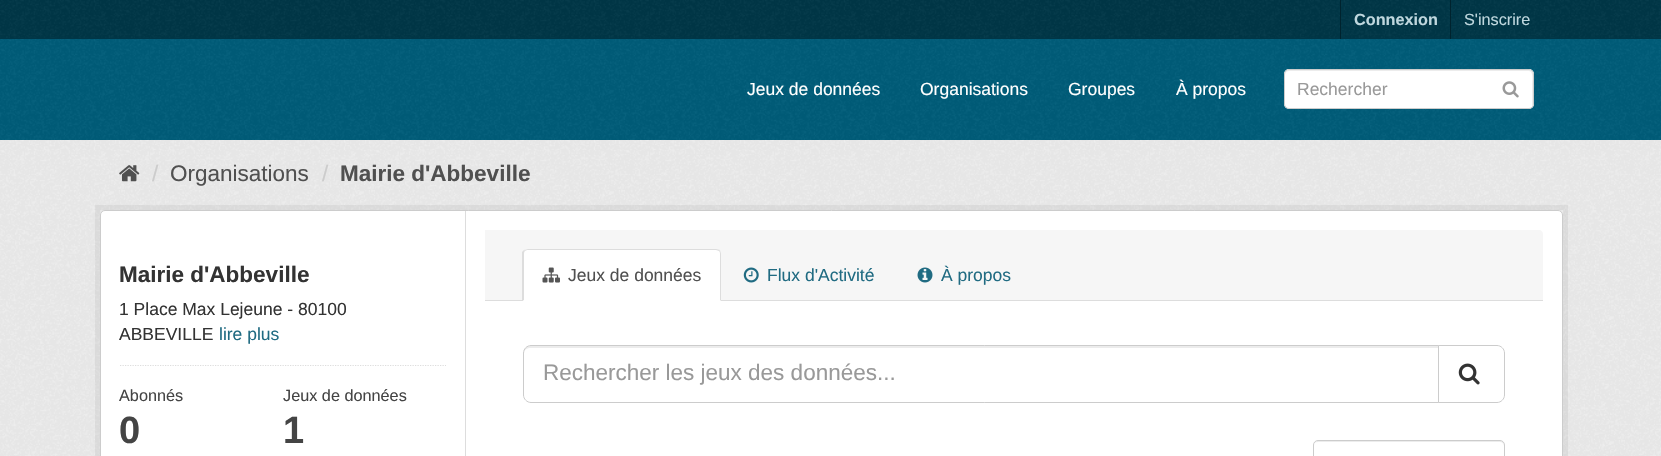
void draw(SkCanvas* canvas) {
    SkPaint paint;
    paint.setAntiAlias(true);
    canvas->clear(0xFF003647);
    canvas->drawImageRect(SkImages::DeferredFromEncodedData(SkData::MakeFromFileName("img1.png")), SkRect::MakeXYWH(0, 0, 1661, 38), SkSamplingOptions());
    paint.setColor(0xFF00232E);
    canvas->drawRect(SkRect::MakeXYWH(1340, 0, 1, 39), paint);
    SkFont font1(fontMgr->matchFamilyStyle("Liberation Sans", SkFontStyle::Bold()), 16.25f);
    font1.setSubpixel(true);
    paint.setColor(0xFFBFD7DE);
    canvas->drawString("Connexion", 1354, 25, font1, paint);
    paint.setColor(0xFF00232E);
    canvas->drawRect(SkRect::MakeXYWH(1450, 0, 1, 39), paint);
    SkFont font2(fontMgr->matchFamilyStyle("Liberation Sans", SkFontStyle::Normal()), 16.25f);
    font2.setSubpixel(true);
    paint.setColor(0xFFBFD7DE);
    canvas->drawString("S'inscrire", 1464, 25, font2, paint);
    paint.setColor(0xFF005D7A);
    canvas->drawRect(SkRect::MakeXYWH(0, 39, 1661, 101), paint);
    canvas->drawImageRect(SkImages::DeferredFromEncodedData(SkData::MakeFromFileName("img2.png")), SkRect::MakeXYWH(0, 39, 1661, 101), SkSamplingOptions());
    SkFont font3(fontMgr->matchFamilyStyle("Liberation Sans", SkFontStyle::Normal()), 17.5f);
    font3.setSubpixel(true);
    paint.setColor(0xFFFFFFFF);
    canvas->drawString("Jeux de données", 747, 95, font3, paint);
    canvas->drawString("Organisations", 920, 95, font3, paint);
    canvas->drawString("Groupes", 1068, 95, font3, paint);
    canvas->drawString("À propos", 1176, 95, font3, paint);
    canvas->drawRoundRect(SkRect::MakeXYWH(1284, 69, 250, 40), 5, 5, paint);
    paint.setColor(0xFFECECEC);
    canvas->drawPath(SkPathBuilder().moveTo(1289, 71).lineTo(1529, 71).cubicTo(1534, 71, 1532, 83, 1532, 85).lineTo(1532, 107).cubicTo(1532, 106, 1533, 105, 1533, 104).lineTo(1533, 74).cubicTo(1533, 72, 1531, 70, 1529, 70).lineTo(1289, 70).cubicTo(1287, 70, 1285, 72, 1285, 74).lineTo(1285, 75).cubicTo(1285, 73, 1287, 71, 1289, 71).close().detach(), paint);
    paint.setStyle(SkPaint::kStroke_Style);
    paint.setStrokeWidth(1);
    paint.setColor(0xFFCCCCCC);
    canvas->drawRoundRect(SkRect::MakeXYWH(1284.5f, 69.5f, 249, 39), 4.5f, 4.5f, paint);
    paint.setStyle(SkPaint::kFill_Style);
    paint.setColor(0xFF999999);
    canvas->drawString("Rechercher", 1297, 95, font3, paint);
    canvas->drawImageRect(SkImages::DeferredFromEncodedData(SkData::MakeFromFileName("img3.png")), SkRect::MakeXYWH(1502, 81, 17, 17), SkSamplingOptions());
    paint.setColor(0xFFEEEEEE);
    canvas->drawRect(SkRect::MakeXYWH(0, 140, 1661, 316), paint);
    canvas->drawImageRect(SkImages::DeferredFromEncodedData(SkData::MakeFromFileName("img4.png")), SkRect::MakeXYWH(0, 140, 1661, 316), SkSamplingOptions());
    canvas->drawImageRect(SkImages::DeferredFromEncodedData(SkData::MakeFromFileName("img5.png")), SkRect::MakeXYWH(119, 165, 21, 17), SkSamplingOptions());
    SkFont font4(fontMgr->matchFamilyStyle("Liberation Sans", SkFontStyle::Normal()), 22.5f);
    font4.setSubpixel(true);
    paint.setColor(0xFFCCCCCC);
    canvas->drawString("/", 152, 181, font4, paint);
    paint.setColor(0xFF505050);
    canvas->drawString("Organisations", 170, 181, font4, paint);
    paint.setColor(0xFFCCCCCC);
    canvas->drawString("/", 322, 181, font4, paint);
    SkFont font5(fontMgr->matchFamilyStyle("Liberation Sans", SkFontStyle::Bold()), 22.5f);
    font5.setSubpixel(true);
    paint.setColor(0xFF505050);
    canvas->drawString("Mairie d'Abbeville", 340, 181, font5, paint);
    paint.setStyle(SkPaint::kStroke_Style);
    paint.setStrokeWidth(5);
    paint.setColor(0x0D000000);
    canvas->drawRect(SkRect::MakeXYWH(97.5f, 207.5f, 1468, 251), paint);
    paint.setStyle(SkPaint::kFill_Style);
    paint.setColor(0xFFFFFFFF);
    canvas->drawRoundRect(SkRect::MakeXYWH(100.5f, 210.5f, 1462, 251), 4.5f, 4.5f, paint);
    paint.setStyle(SkPaint::kStroke_Style);
    paint.setStrokeWidth(1);
    paint.setColor(0xFFCCCCCC);
    canvas->drawRoundRect(SkRect::MakeXYWH(100.5f, 210.5f, 1462, 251), 4.5f, 4.5f, paint);
    paint.setStyle(SkPaint::kFill_Style);
    paint.setColor(0xFF333333);
    canvas->drawString("Mairie d'Abbeville", 119, 282, font5, paint);
    canvas->drawString("1 Place Max Lejeune - 80100", 119, 315, font3, paint);
    canvas->drawString("ABBEVILLE", 119, 340, font3, paint);
    paint.setColor(0xFF206B82);
    canvas->drawString("lire plus", 219, 340, font3, paint);
    paint.setStyle(SkPaint::kStroke_Style);
    paint.setStrokeWidth(1.2f);
    paint.setColor(0xFFDDDDDD);
    paint.setPathEffect(SkDashPathEffect::Make({{1.25f, 1.25f}}, 0));
    canvas->drawPath(SkPathBuilder().moveTo(120, 365.5f).lineTo(446, 365.5f).detach(), paint);
    paint.setPathEffect(nullptr);
    paint.setStyle(SkPaint::kFill_Style);
    paint.setColor(0xFF444444);
    canvas->drawString("Abonnés", 119, 401, font2, paint);
    SkFont font6(fontMgr->matchFamilyStyle("Liberation Sans", SkFontStyle::Bold()), 38);
    font6.setSubpixel(true);
    canvas->drawString("0", 119, 443, font6, paint);
    canvas->drawString("Jeux de données", 283, 401, font2, paint);
    canvas->drawString("1", 283, 443, font6, paint);
    paint.setColor(0xFFDDDDDD);
    canvas->drawRect(SkRect::MakeXYWH(465, 211, 1, 245), paint);
    paint.setColor(0xFFF6F6F6);
    canvas->drawPath(SkPathBuilder().moveTo(485, 230).lineTo(1539, 230).cubicTo(1541, 230, 1543, 232, 1543, 234).lineTo(1543, 301).lineTo(485, 301).close().detach(), paint);
    paint.setColor(0xFFDDDDDD);
    canvas->drawRect(SkRect::MakeXYWH(485, 300, 1058, 1), paint);
    paint.setColor(0xFFFFFFFF);
    canvas->drawPath(SkPathBuilder().moveTo(528, 249).lineTo(716, 249).cubicTo(719, 249, 721, 251, 721, 254).lineTo(721, 301).lineTo(523, 301).lineTo(523, 254).cubicTo(523, 251, 525, 249, 528, 249).close().detach(), paint);
    paint.setColor(0xFFDDDDDD);
    canvas->drawPath(SkPathBuilder().moveTo(528, 249).lineTo(524, 250).lineTo(525, 251).cubicTo(526, 250, 527, 250, 528, 250).lineTo(716, 250).lineTo(719, 251).lineTo(720, 250).cubicTo(719, 250, 718, 249, 716, 249).close().detach(), paint);
    canvas->drawPath(SkPathBuilder().moveTo(721, 301).lineTo(721, 254).cubicTo(721, 252, 720, 251, 720, 250).lineTo(719, 251).cubicTo(720, 252, 720, 253, 720, 254).lineTo(720, 300).close().detach(), paint);
    canvas->drawPath(SkPathBuilder().moveTo(522, 252).lineTo(524, 250).lineTo(525, 251).cubicTo(524, 252, 524, 253, 524, 254).lineTo(524, 300).lineTo(522, 301).close().detach(), paint);
    canvas->drawImageRect(SkImages::DeferredFromEncodedData(SkData::MakeFromFileName("img6.png")), SkRect::MakeXYWH(542, 267, 18, 16), SkSamplingOptions());
    paint.setColor(0xFF505050);
    canvas->drawString("Jeux de données", 568, 281, font3, paint);
    canvas->drawImageRect(SkImages::DeferredFromEncodedData(SkData::MakeFromFileName("img7.png")), SkRect::MakeXYWH(743, 267, 16, 16), SkSamplingOptions());
    paint.setColor(0xFF206B82);
    canvas->drawString("Flux d'Activité", 767, 281, font3, paint);
    canvas->drawImageRect(SkImages::DeferredFromEncodedData(SkData::MakeFromFileName("img8.png")), SkRect::MakeXYWH(917, 267, 16, 16), SkSamplingOptions());
    canvas->drawString("À propos", 941, 281, font3, paint);
    paint.setColor(0xFFECECEC);
    canvas->drawPath(SkPathBuilder().moveTo(530, 348).lineTo(1438, 348).lineTo(1438, 346).lineTo(530, 346).cubicTo(525, 346, 524, 350, 524, 354).cubicTo(524, 350, 527, 348, 530, 348).close().detach(), paint);
    paint.setStyle(SkPaint::kStroke_Style);
    paint.setStrokeWidth(1);
    paint.setColor(0xFFCCCCCC);
    canvas->drawPath(SkPathBuilder().moveTo(531, 345.5f).lineTo(1438.5f, 345.5f).lineTo(1438.5f, 402.5f).lineTo(531, 402.5f).cubicTo(527, 402.5f, 523.5f, 399, 523.5f, 395).lineTo(523.5f, 353).cubicTo(523.5f, 349, 527, 345.5f, 531, 345.5f).close().detach(), paint);
    paint.setStyle(SkPaint::kFill_Style);
    paint.setColor(0xFF999999);
    canvas->drawString("Rechercher les jeux des données...", 543, 380, font4, paint);
    paint.setColor(0xFFFFFFFF);
    canvas->drawPath(SkPathBuilder().moveTo(1438.5f, 345.5f).lineTo(1497, 345.5f).cubicTo(1501, 345.5f, 1504.5f, 349, 1504.5f, 353).lineTo(1504.5f, 395).cubicTo(1504.5f, 399, 1501, 402.5f, 1497, 402.5f).lineTo(1438.5f, 402.5f).close().detach(), paint);
    paint.setStyle(SkPaint::kStroke_Style);
    paint.setColor(0xFFCCCCCC);
    canvas->drawPath(SkPathBuilder().moveTo(1438.5f, 345.5f).lineTo(1497, 345.5f).cubicTo(1501, 345.5f, 1504.5f, 349, 1504.5f, 353).lineTo(1504.5f, 395).cubicTo(1504.5f, 399, 1501, 402.5f, 1497, 402.5f).lineTo(1438.5f, 402.5f).close().detach(), paint);
    canvas->drawImageRect(SkImages::DeferredFromEncodedData(SkData::MakeFromFileName("img9.png")), SkRect::MakeXYWH(1458, 363, 22, 22), SkSamplingOptions());
    paint.setStyle(SkPaint::kFill_Style);
    paint.setColor(0xFFECECEC);
    canvas->drawPath(SkPathBuilder().moveTo(1318, 442).lineTo(1500, 442).cubicTo(1502, 442, 1504, 444, 1504, 446).cubicTo(1504, 443, 1503, 441, 1500, 441).lineTo(1317, 441).cubicTo(1315, 442, 1314, 444, 1314, 446).cubicTo(1314, 444, 1315, 442, 1318, 442).close().detach(), paint);
    paint.setStyle(SkPaint::kStroke_Style);
    paint.setColor(0xFFCCCCCC);
    canvas->drawRoundRect(SkRect::MakeXYWH(1313.5f, 440.5f, 191, 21), 4.5f, 4.5f, paint);
}
